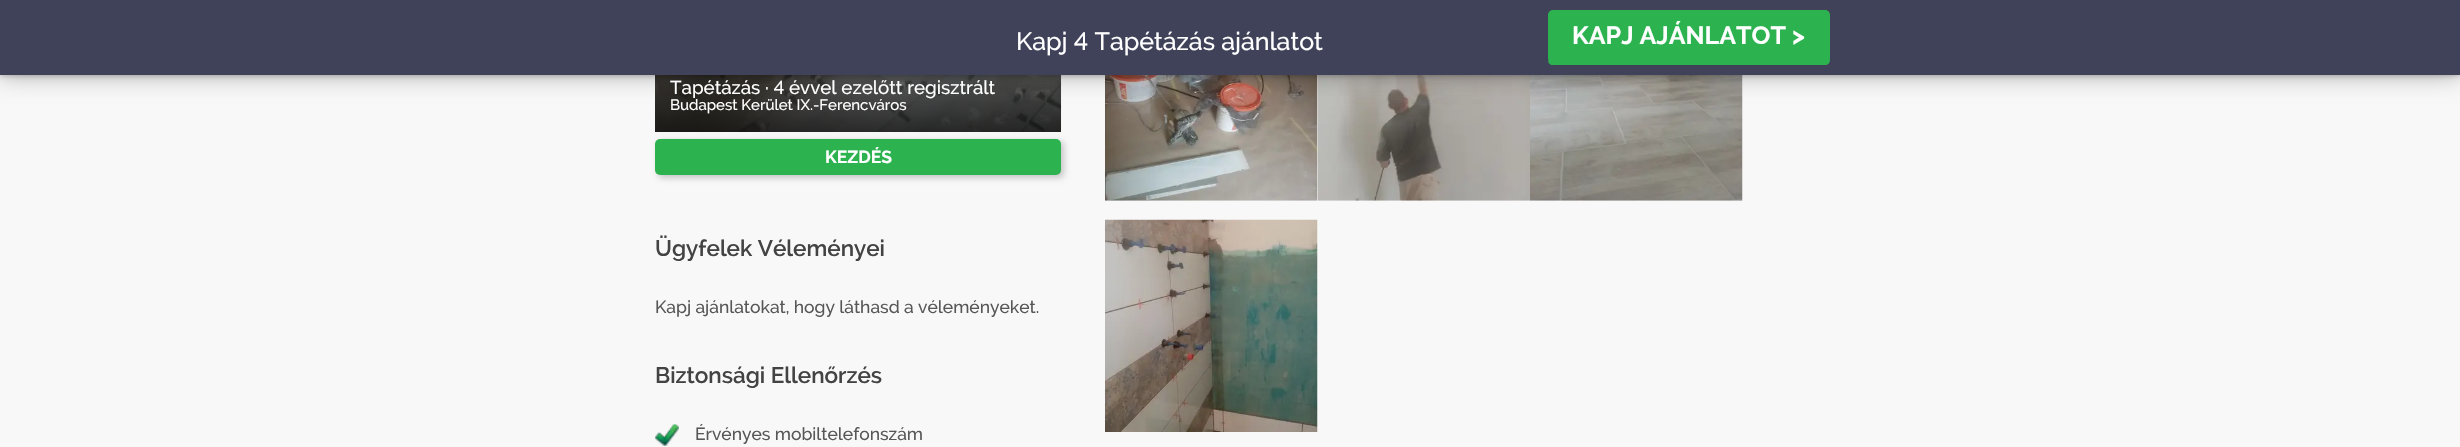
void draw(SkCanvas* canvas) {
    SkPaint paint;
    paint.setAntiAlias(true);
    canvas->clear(0xFFF8F8F8);
    canvas->drawImageRect(SkImages::DeferredFromEncodedData(SkData::MakeFromFileName("img1.png")), SkRect::MakeXYWH(655, 75, 407, 57), SkSamplingOptions());
    canvas->drawImageRect(SkImages::DeferredFromEncodedData(SkData::MakeFromFileName("img3.png")), SkRect::MakeXYWH(1105, 75, 213, 126), SkSamplingOptions());
    canvas->drawImageRect(SkImages::DeferredFromEncodedData(SkData::MakeFromFileName("img4.png")), SkRect::MakeXYWH(1317, 75, 213, 126), SkSamplingOptions());
    canvas->drawImageRect(SkImages::DeferredFromEncodedData(SkData::MakeFromFileName("img5.png")), SkRect::MakeXYWH(1530, 75, 213, 126), SkSamplingOptions());
    paint.setColor(0x4D000000);
    paint.setMaskFilter(SkMaskFilter::MakeBlur(kNormal_SkBlurStyle, 12.5f));
    canvas->drawRect(SkRect::MakeXYWH(0, 0, 2460, 75), paint);
    paint.setMaskFilter(nullptr);
    paint.setMaskFilter(SkMaskFilter::MakeBlur(kNormal_SkBlurStyle, 3));
    canvas->drawRect(SkRect::MakeXYWH(0, 0, 2460, 75), paint);
    paint.setMaskFilter(nullptr);
    paint.setColor(0xFF404259);
    canvas->drawRect(SkRect::MakeXYWH(0, 0, 2460, 75), paint);
    SkFont font1(fontMgr->matchFamilyStyle("Raleway", SkFontStyle(500, SkFontStyle::kNormal_Width, SkFontStyle::kUpright_Slant)), 25);
    font1.setSubpixel(true);
    paint.setColor(0xFFFFFFFF);
    canvas->drawString("Kapj 4 Tapétázás ajánlatot", 1016, 50, font1, paint);
    paint.setColor(0xFF2CB34F);
    canvas->drawPath(SkPathBuilder().moveTo(1548, 60).cubicTo(1548, 63, 1550, 65, 1553, 65).lineTo(1825, 65).cubicTo(1828, 65, 1830, 63, 1830, 60).lineTo(1830, 58).cubicTo(1830, 60, 1828, 62, 1825, 62).lineTo(1552, 62).cubicTo(1551, 62, 1549, 61, 1548, 60).close().detach(), paint);
    canvas->drawRoundRect(SkRect::MakeXYWH(1548, 10, 282, 53), 5, 5, paint);
    SkFont font2(fontMgr->matchFamilyStyle("Raleway", SkFontStyle::Bold()), 25);
    font2.setSubpixel(true);
    paint.setColor(0xFFFFFFFF);
    canvas->drawString("KAPJ AJÁNLATOT >", 1572, 44, font2, paint);
    SkFont font3(fontMgr->matchFamilyStyle("Raleway", SkFontStyle(500, SkFontStyle::kNormal_Width, SkFontStyle::kUpright_Slant)), 18.75f);
    font3.setSubpixel(true);
    canvas->drawString("Tapétázás · 4 évvel ezelőtt regisztrált", 670, 94, font3, paint);
    SkFont font4(fontMgr->matchFamilyStyle("Raleway", SkFontStyle(500, SkFontStyle::kNormal_Width, SkFontStyle::kUpright_Slant)), 15);
    font4.setSubpixel(true);
    canvas->drawString("Budapest Kerület IX.-Ferencváros", 670, 110, font4, paint);
    paint.setColor(0x33000000);
    paint.setMaskFilter(SkMaskFilter::MakeBlur(kNormal_SkBlurStyle, 3));
    canvas->drawRoundRect(SkRect::MakeXYWH(658, 141, 406, 37), 5, 5, paint);
    paint.setMaskFilter(nullptr);
    paint.setColor(0xFF2CB34F);
    canvas->drawRoundRect(SkRect::MakeXYWH(655, 139, 406, 36), 5, 5, paint);
    SkFont font5(fontMgr->matchFamilyStyle("Raleway", SkFontStyle::Bold()), 17.5f);
    font5.setSubpixel(true);
    paint.setColor(0xFFFFFFFF);
    canvas->drawString("KEZDÉS", 825, 163, font5, paint);
    SkFont font6(fontMgr->matchFamilyStyle("Raleway", SkFontStyle(600, SkFontStyle::kNormal_Width, SkFontStyle::kUpright_Slant)), 22.5f);
    font6.setSubpixel(true);
    paint.setColor(0xFF434343);
    canvas->drawString("Ügyfelek Véleményei", 655, 256, font6, paint);
    SkFont font7(fontMgr->matchFamilyStyle("Raleway", SkFontStyle(500, SkFontStyle::kNormal_Width, SkFontStyle::kUpright_Slant)), 17.5f);
    font7.setSubpixel(true);
    paint.setColor(0xFF575757);
    canvas->drawString("Kapj ajánlatokat, hogy láthasd a véleményeket.", 655, 313, font7, paint);
    paint.setColor(0xFF434343);
    canvas->drawString("Biztonsági Ellenőrzés", 655, 383, font6, paint);
    canvas->drawImageRect(SkImages::DeferredFromEncodedData(SkData::MakeFromFileName("img2.png")), SkRect::MakeXYWH(655, 424, 24, 22), SkSamplingOptions());
    paint.setColor(0xFF575757);
    canvas->drawString("Érvényes mobiltelefonszám", 695, 440, font7, paint);
    canvas->drawImageRect(SkImages::DeferredFromEncodedData(SkData::MakeFromFileName("img6.png")), SkRect::MakeXYWH(1105, 219, 213, 213), SkSamplingOptions());
}
